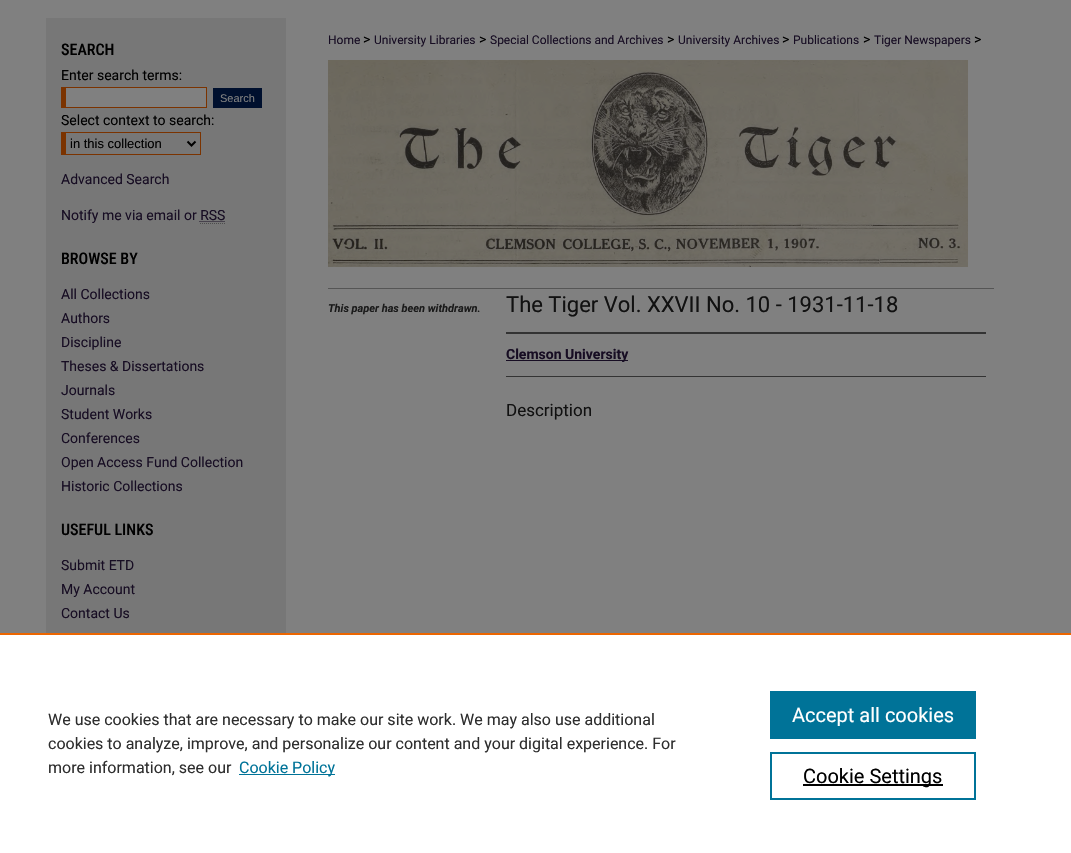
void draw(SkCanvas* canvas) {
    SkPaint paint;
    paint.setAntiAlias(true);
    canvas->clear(0xFF808080);
    paint.setColor(0xFF777777);
    canvas->drawRect(SkRect::MakeXYWH(46, 18, 240, 615), paint);
    SkFont font1(fontMgr->matchFamilyStyle("Roboto Condensed", SkFontStyle(500, SkFontStyle::kNormal_Width, SkFontStyle::kUpright_Slant)), 16);
    font1.setSubpixel(true);
    paint.setColor(0xFF000000);
    canvas->drawString("SEARCH", 61, 55, font1, paint);
    SkFont font2(fontMgr->matchFamilyStyle("Roboto", SkFontStyle::Normal()), 14);
    font2.setSubpixel(true);
    canvas->drawString("Enter search terms:", 61, 80, font2, paint);
    paint.setColor(0xFF808080);
    canvas->drawRect(SkRect::MakeXYWH(66, 88, 140, 19), paint);
    paint.setColor(0xFF7B3300);
    canvas->drawRect(SkRect::MakeXYWH(61, 87, 146, 1), paint);
    canvas->drawRect(SkRect::MakeXYWH(206, 87, 1, 21), paint);
    canvas->drawRect(SkRect::MakeXYWH(61, 107, 146, 1), paint);
    canvas->drawRect(SkRect::MakeXYWH(61, 87, 5, 21), paint);
    paint.setColor(0xFF00102E);
    canvas->drawRect(SkRect::MakeXYWH(213, 88, 49, 20), paint);
    SkFont font3(fontMgr->matchFamilyStyle("Liberation Sans", SkFontStyle::Normal()), 11);
    font3.setSubpixel(true);
    paint.setColor(0xFF808080);
    canvas->drawString("Search", 220, 102, font3, paint);
    paint.setColor(0xFF000000);
    canvas->drawString("Select context to search:", 61, 125, font2, paint);
    paint.setColor(0xFF7B3300);
    canvas->drawRect(SkRect::MakeXYWH(61, 132, 140, 1), paint);
    canvas->drawRect(SkRect::MakeXYWH(200, 132, 1, 23), paint);
    canvas->drawRect(SkRect::MakeXYWH(61, 154, 140, 1), paint);
    canvas->drawRect(SkRect::MakeXYWH(61, 132, 5, 23), paint);
    paint.setStyle(SkPaint::kStroke_Style);
    paint.setStrokeWidth(2);
    paint.setColor(0xFF000000);
    canvas->drawPath(SkPathBuilder().moveTo(187.5f, 141.5f).lineTo(191.5f, 145.5f).lineTo(195.5f, 141.5f).detach(), paint);
    SkFont font4(fontMgr->matchFamilyStyle("Liberation Sans", SkFontStyle::Normal()), 13);
    font4.setSubpixel(true);
    paint.setStyle(SkPaint::kFill_Style);
    canvas->drawString("in this collection", 70, 148, font4, paint);
    paint.setColor(0xFF170D23);
    canvas->drawString("Advanced Search", 61, 184, font2, paint);
    canvas->drawString("Notify me via email or RSS", 61, 220, font2, paint);
    paint.setStyle(SkPaint::kStroke_Style);
    paint.setStrokeWidth(1);
    paint.setPathEffect(SkDashPathEffect::Make({{1, 1}}, 0));
    canvas->drawPath(SkPathBuilder().moveTo(199.5f, 221.5f).lineTo(225, 221.5f).detach(), paint);
    paint.setPathEffect(nullptr);
    paint.setColor(0xFF4D4D4D);
    paint.setPathEffect(SkDashPathEffect::Make({{1, 1}}, 0));
    canvas->drawPath(SkPathBuilder().moveTo(200, 223.5f).lineTo(225, 223.5f).detach(), paint);
    paint.setPathEffect(nullptr);
    paint.setStyle(SkPaint::kFill_Style);
    paint.setColor(0xFF000000);
    canvas->drawString("BROWSE BY", 61, 264, font1, paint);
    paint.setColor(0xFF170D23);
    canvas->drawString("All Collections", 61, 299, font2, paint);
    canvas->drawString("Authors", 61, 323, font2, paint);
    canvas->drawString("Discipline", 61, 347, font2, paint);
    canvas->drawString("Theses & Dissertations", 61, 371, font2, paint);
    canvas->drawString("Journals", 61, 395, font2, paint);
    canvas->drawString("Student Works", 61, 419, font2, paint);
    canvas->drawString("Conferences", 61, 443, font2, paint);
    canvas->drawString("Open Access Fund Collection", 61, 467, font2, paint);
    canvas->drawString("Historic Collections", 61, 491, font2, paint);
    paint.setColor(0xFF000000);
    canvas->drawString("USEFUL LINKS", 61, 535, font1, paint);
    paint.setColor(0xFF170D23);
    canvas->drawString("Submit ETD", 61, 570, font2, paint);
    canvas->drawString("My Account", 61, 594, font2, paint);
    canvas->drawString("Contact Us", 61, 618, font2, paint);
    SkFont font5(fontMgr->matchFamilyStyle("Roboto", SkFontStyle::Normal()), 12);
    font5.setSubpixel(true);
    canvas->drawString("Home", 328, 44, font5, paint);
    paint.setColor(0xFF000000);
    canvas->drawString(">", 363, 44, font2, paint);
    paint.setColor(0xFF170D23);
    canvas->drawString("University Libraries", 374, 44, font5, paint);
    paint.setColor(0xFF000000);
    canvas->drawString(">", 479, 44, font2, paint);
    paint.setColor(0xFF170D23);
    canvas->drawString("Special Collections and Archives", 490, 44, font5, paint);
    paint.setColor(0xFF000000);
    canvas->drawString(">", 667, 44, font2, paint);
    paint.setColor(0xFF170D23);
    canvas->drawString("University Archives", 678, 44, font5, paint);
    paint.setColor(0xFF000000);
    canvas->drawString(">", 782, 44, font2, paint);
    paint.setColor(0xFF170D23);
    canvas->drawString("Publications", 793, 44, font5, paint);
    paint.setColor(0xFF000000);
    canvas->drawString(">", 863, 44, font2, paint);
    paint.setColor(0xFF170D23);
    canvas->drawString("Tiger Newspapers", 874, 44, font5, paint);
    paint.setColor(0xFF000000);
    canvas->drawString(">", 974, 44, font2, paint);
    canvas->drawImageRect(SkImages::DeferredFromEncodedData(SkData::MakeFromFileName("img1.png")), SkRect::MakeXYWH(328, 60, 640, 207), SkSamplingOptions());
    paint.setColor(0xFF555555);
    canvas->drawRect(SkRect::MakeXYWH(328, 288, 666, 1), paint);
    SkFont font6(fontMgr->matchFamilyStyle("Roboto", SkFontStyle::BoldItalic()), 11);
    font6.setSubpixel(true);
    paint.setColor(0xFF1A1A1A);
    canvas->drawString("This paper has been withdrawn.", 328, 312, font6, paint);
    SkFont font7(fontMgr->matchFamilyStyle("Roboto", SkFontStyle::Normal()), 22);
    font7.setSubpixel(true);
    paint.setColor(0xFF111111);
    canvas->drawString("The Tiger Vol. XXVII No. 10 - 1931-11-18", 506, 312, font7, paint);
    paint.setColor(0xFF333333);
    canvas->drawRect(SkRect::MakeXYWH(506, 332, 480, 2), paint);
    canvas->drawRect(SkRect::MakeXYWH(506, 376, 480, 1), paint);
    paint.setColor(0xFF170D23);
    canvas->drawRect(SkRect::MakeXYWH(506, 360, 122, 1), paint);
    SkFont font8(fontMgr->matchFamilyStyle("Roboto", SkFontStyle::Bold()), 14);
    font8.setSubpixel(true);
    canvas->drawString("Clemson University", 506, 359, font8, paint);
    SkFont font9(fontMgr->matchFamilyStyle("Roboto", SkFontStyle::Normal()), 17);
    font9.setSubpixel(true);
    paint.setColor(0xFF111111);
    canvas->drawString("Description", 506, 416, font9, paint);
    paint.setColor(0xFFFFFFFF);
    canvas->drawRect(SkRect::MakeXYWH(0, 635, 1071, 218), paint);
    paint.setColor(0xFFEB6500);
    canvas->drawRect(SkRect::MakeXYWH(0, 633, 1071, 2), paint);
    SkFont font10(fontMgr->matchFamilyStyle("Roboto", SkFontStyle::Normal()), 16);
    font10.setSubpixel(true);
    paint.setColor(0xFF2E2E2E);
    canvas->drawString("We use cookies that are necessary to make our site work. We may also use additional", 48, 725, font10, paint);
    canvas->drawString("cookies to analyze, improve, and personalize our content and your digital experience. For", 48, 749, font10, paint);
    canvas->drawString("more information, see our", 48, 773, font10, paint);
    paint.setColor(0xFF007398);
    canvas->drawRect(SkRect::MakeXYWH(239, 774, 96, 1), paint);
    canvas->drawString("Cookie Policy", 239, 773, font10, paint);
    canvas->drawRect(SkRect::MakeXYWH(770, 691, 206, 48), paint);
    SkFont font11(fontMgr->matchFamilyStyle("Roboto", SkFontStyle::Normal()), 20);
    font11.setSubpixel(true);
    paint.setColor(0xFFFFFFFF);
    canvas->drawString("Accept all cookies", 792, 722, font11, paint);
    paint.setStyle(SkPaint::kStroke_Style);
    paint.setStrokeWidth(2);
    paint.setColor(0xFF007398);
    canvas->drawRect(SkRect::MakeXYWH(771, 753, 204, 46), paint);
    paint.setStyle(SkPaint::kFill_Style);
    paint.setColor(0xFF000000);
    canvas->drawRect(SkRect::MakeXYWH(803, 784, 140, 2), paint);
    canvas->drawString("Cookie Settings", 803, 783, font11, paint);
}
